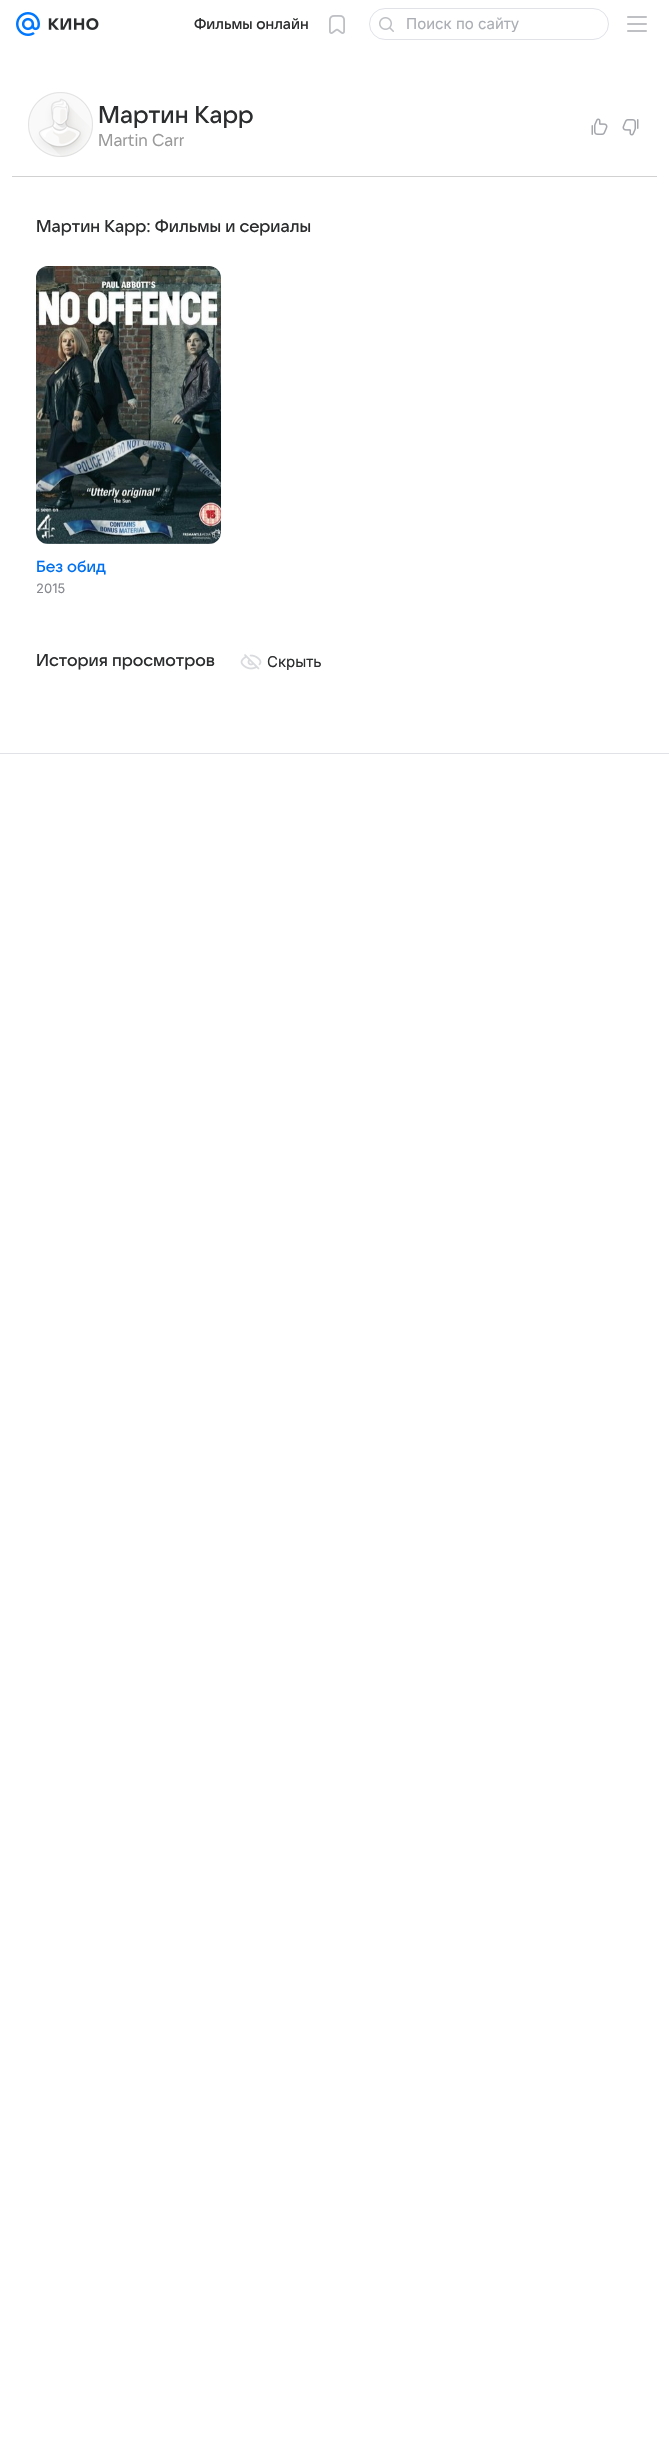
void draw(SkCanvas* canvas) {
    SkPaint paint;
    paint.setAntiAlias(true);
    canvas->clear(0xFFFFFFFF);
    canvas->drawImageRect(SkImages::DeferredFromEncodedData(SkData::MakeFromFileName("img1.png")), SkRect::MakeXYWH(16, 12, 24, 24), SkSamplingOptions());
    canvas->drawImageRect(SkImages::DeferredFromEncodedData(SkData::MakeFromFileName("img2.png")), SkRect::MakeXYWH(48, 18, 51, 12), SkSamplingOptions());
    SkFont font1(fontMgr->matchFamilyStyle("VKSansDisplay", SkFontStyle(500, SkFontStyle::kNormal_Width, SkFontStyle::kUpright_Slant)), 15);
    font1.setSubpixel(true);
    paint.setColor(0xFF2C2D2E);
    canvas->drawString("Фильмы онлайн", 194, 29, font1, paint);
    canvas->drawImageRect(SkImages::DeferredFromEncodedData(SkData::MakeFromFileName("img3.png")), SkRect::MakeXYWH(329, 15, 16, 19), SkSamplingOptions());
    paint.setStyle(SkPaint::kStroke_Style);
    paint.setStrokeWidth(1);
    paint.setColor(0xFFE0E2E8);
    canvas->drawRoundRect(SkRect::MakeXYWH(369.5f, 8.5f, 239, 31), 15.5f, 15.5f, paint);
    canvas->drawImageRect(SkImages::DeferredFromEncodedData(SkData::MakeFromFileName("img4.png")), SkRect::MakeXYWH(379, 17, 15, 15), SkSamplingOptions());
    SkFont font2(fontMgr->matchFamilyStyle("Inter", SkFontStyle::Normal()), 15);
    font2.setSubpixel(true);
    paint.setStyle(SkPaint::kFill_Style);
    paint.setColor(0xFFAAADB3);
    canvas->drawString("Поиск по сайту", 406, 29, font2, paint);
    canvas->drawImageRect(SkImages::DeferredFromEncodedData(SkData::MakeFromFileName("img5.png")), SkRect::MakeXYWH(627, 16, 20, 16), SkSamplingOptions());
    paint.setColor(0xFFD1D1D1);
    canvas->drawRect(SkRect::MakeXYWH(12, 176, 645, 1), paint);
    canvas->drawImageRect(SkImages::DeferredFromEncodedData(SkData::MakeFromFileName("img6.png")), SkRect::MakeXYWH(28, 92, 65, 65), SkSamplingOptions());
    SkFont font3(fontMgr->matchFamilyStyle("VKSansDisplay", SkFontStyle(500, SkFontStyle::kNormal_Width, SkFontStyle::kUpright_Slant)), 24);
    font3.setSubpixel(true);
    paint.setColor(0xFF2C2D2E);
    canvas->drawString("Мартин Карр", 98, 123, font3, paint);
    SkFont font4(fontMgr->matchFamilyStyle("VKSansDisplay", SkFontStyle::Normal()), 17);
    font4.setSubpixel(true);
    paint.setColor(0xFF999999);
    canvas->drawString("Martin Carr", 98, 146, font4, paint);
    canvas->drawImageRect(SkImages::DeferredFromEncodedData(SkData::MakeFromFileName("img7.png")), SkRect::MakeXYWH(591, 118, 17, 17), SkSamplingOptions());
    canvas->drawImageRect(SkImages::DeferredFromEncodedData(SkData::MakeFromFileName("img8.png")), SkRect::MakeXYWH(622, 119, 17, 17), SkSamplingOptions());
    SkFont font5(fontMgr->matchFamilyStyle("VKSansDisplay", SkFontStyle(500, SkFontStyle::kNormal_Width, SkFontStyle::kUpright_Slant)), 17);
    font5.setSubpixel(true);
    paint.setColor(0xFF2C2D2E);
    canvas->drawString("Мартин Карр: Фильмы и сериалы", 36, 232, font5, paint);
    canvas->drawImageRect(SkImages::DeferredFromEncodedData(SkData::MakeFromFileName("img9.png")), SkRect::MakeXYWH(36, 266, 185, 278), SkSamplingOptions());
    SkFont font6(fontMgr->matchFamilyStyle("VKSansDisplay", SkFontStyle(500, SkFontStyle::kNormal_Width, SkFontStyle::kUpright_Slant)), 16);
    font6.setSubpixel(true);
    paint.setColor(0xFF0070F0);
    canvas->drawString("Без обид", 36, 572, font6, paint);
    SkFont font7(fontMgr->matchFamilyStyle("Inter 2", SkFontStyle::Normal()), 13);
    font7.setSubpixel(true);
    paint.setColor(0xFF87898F);
    canvas->drawString("2015", 36, 593, font7, paint);
    paint.setColor(0xFF2C2D2E);
    canvas->drawString("История просмотров", 36, 666, font5, paint);
    canvas->drawImageRect(SkImages::DeferredFromEncodedData(SkData::MakeFromFileName("img10.png")), SkRect::MakeXYWH(240, 654, 22, 16), SkSamplingOptions());
    canvas->drawString("Скрыть", 267, 667, font2, paint);
    paint.setColor(0xFFE0E2E8);
    canvas->drawRect(SkRect::MakeXYWH(0, 753, 669, 1), paint);
}
